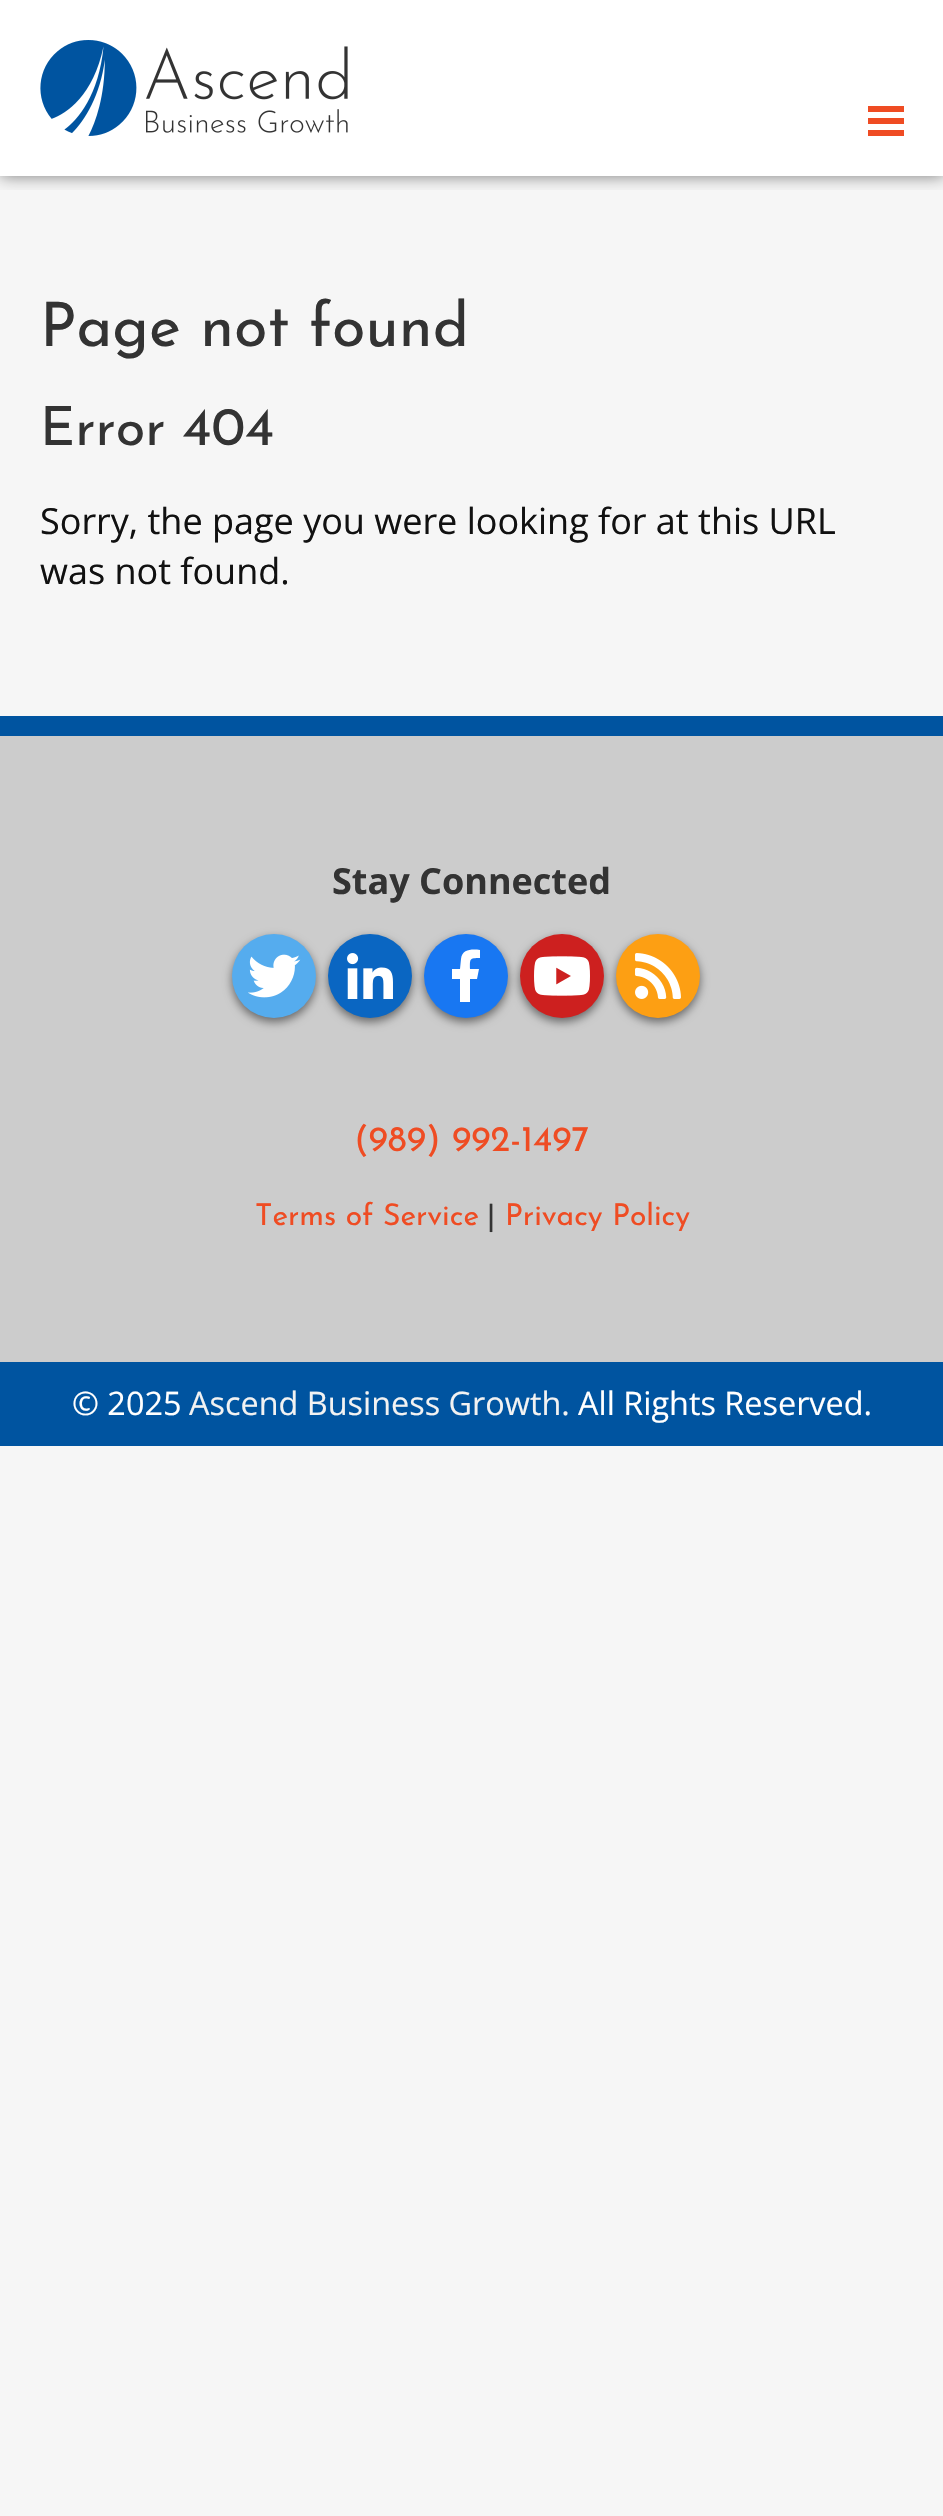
void draw(SkCanvas* canvas) {
    SkPaint paint;
    paint.setAntiAlias(true);
    canvas->clear(0xFFF6F6F6);
    paint.setColor(0xFFFFFFFF);
    canvas->drawRect(SkRect::MakeXYWH(0, 0, 943, 176), paint);
    canvas->save();
    canvas->clipRect(SkRect::MakeXYWH(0, 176, 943, 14));
    paint.setColor(0x80000000);
    paint.setMaskFilter(SkMaskFilter::MakeBlur(kNormal_SkBlurStyle, 8));
    canvas->drawRect(SkRect::MakeXYWH(0, 0, 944, 176), paint);
    paint.setMaskFilter(nullptr);
    canvas->restore();
    canvas->drawImageRect(SkImages::DeferredFromEncodedData(SkData::MakeFromFileName("img1.png")), SkRect::MakeXYWH(40, 40, 308, 96), SkSamplingOptions());
    paint.setColor(0xFFEF4C23);
    canvas->drawRect(SkRect::MakeXYWH(868, 118, 36, 6), paint);
    canvas->drawRect(SkRect::MakeXYWH(868, 106, 36, 6), paint);
    canvas->drawRect(SkRect::MakeXYWH(868, 130, 36, 6), paint);
    SkFont font1(fontMgr->matchFamilyStyle("Josefin Sans", SkFontStyle::Normal()), 61.25f);
    font1.setSubpixel(true);
    paint.setColor(0xFF333333);
    canvas->drawString("Page not found", 40, 346, font1, paint);
    SkFont font2(fontMgr->matchFamilyStyle("Josefin Sans", SkFontStyle::Normal()), 54);
    font2.setSubpixel(true);
    canvas->drawString("Error 404", 40, 445, font2, paint);
    SkFont font3(fontMgr->matchFamilyStyle("Open Sans", SkFontStyle::Normal()), 36);
    font3.setSubpixel(true);
    paint.setColor(0xFF111111);
    canvas->drawString("Sorry, the page you were looking for at this URL", 40, 534, font3, paint);
    canvas->drawString("was not found.", 40, 584, font3, paint);
    paint.setColor(0xFFCCCCCC);
    canvas->drawRect(SkRect::MakeXYWH(0, 736, 943, 626), paint);
    paint.setColor(0xFF0054A0);
    canvas->drawRect(SkRect::MakeXYWH(0, 716, 943, 20), paint);
    SkFont font4(fontMgr->matchFamilyStyle("Open Sans", SkFontStyle::Bold()), 36);
    font4.setSubpixel(true);
    paint.setColor(0xFF333333);
    canvas->drawString("Stay Connected", 332, 894, font4, paint);
    paint.setColor(0x80000000);
    paint.setMaskFilter(SkMaskFilter::MakeBlur(kNormal_SkBlurStyle, 5));
    canvas->drawRoundRect(SkRect::MakeXYWH(232, 938, 84, 84), 42, 42, paint);
    paint.setMaskFilter(nullptr);
    paint.setColor(0xFF55ACEE);
    canvas->drawCircle(274, 976, 42, paint);
    canvas->drawImageRect(SkImages::DeferredFromEncodedData(SkData::MakeFromFileName("img2.png")), SkRect::MakeXYWH(248, 954, 53, 44), SkSamplingOptions());
    paint.setColor(0x80000000);
    paint.setMaskFilter(SkMaskFilter::MakeBlur(kNormal_SkBlurStyle, 5));
    canvas->drawRoundRect(SkRect::MakeXYWH(328, 938, 84, 84), 42, 42, paint);
    paint.setMaskFilter(nullptr);
    paint.setColor(0xFF0A66C2);
    canvas->drawCircle(370, 976, 42, paint);
    canvas->drawImageRect(SkImages::DeferredFromEncodedData(SkData::MakeFromFileName("img3.png")), SkRect::MakeXYWH(347, 953, 46, 46), SkSamplingOptions());
    paint.setColor(0x80000000);
    paint.setMaskFilter(SkMaskFilter::MakeBlur(kNormal_SkBlurStyle, 5));
    canvas->drawRoundRect(SkRect::MakeXYWH(424, 938, 84, 84), 42, 42, paint);
    paint.setMaskFilter(nullptr);
    paint.setColor(0xFF1877F2);
    canvas->drawCircle(466, 976, 42, paint);
    paint.setColor(0xFFFFFFFF);
    canvas->drawPath(SkPathBuilder().moveTo(460, 979).lineTo(452, 979).lineTo(452, 969).lineTo(460, 969).lineTo(461, 959).cubicTo(462, 949, 472, 949, 480, 950).lineTo(480, 958).cubicTo(469, 958, 470, 959, 470, 969).lineTo(479, 969).lineTo(477, 979).lineTo(470, 979).lineTo(470, 1002).lineTo(460, 1002).close().detach(), paint);
    paint.setColor(0x80000000);
    paint.setMaskFilter(SkMaskFilter::MakeBlur(kNormal_SkBlurStyle, 5));
    canvas->drawRoundRect(SkRect::MakeXYWH(520, 938, 84, 84), 42, 42, paint);
    paint.setMaskFilter(nullptr);
    paint.setColor(0xFFCD201F);
    canvas->drawCircle(562, 976, 42, paint);
    canvas->drawImageRect(SkImages::DeferredFromEncodedData(SkData::MakeFromFileName("img4.png")), SkRect::MakeXYWH(534, 956, 56, 40), SkSamplingOptions());
    paint.setColor(0x80000000);
    paint.setMaskFilter(SkMaskFilter::MakeBlur(kNormal_SkBlurStyle, 5));
    canvas->drawRoundRect(SkRect::MakeXYWH(616, 938, 84, 84), 42, 42, paint);
    paint.setMaskFilter(nullptr);
    paint.setColor(0xFFFD9F13);
    canvas->drawCircle(658, 976, 42, paint);
    canvas->drawImageRect(SkImages::DeferredFromEncodedData(SkData::MakeFromFileName("img5.png")), SkRect::MakeXYWH(635, 953, 46, 46), SkSamplingOptions());
    SkFont font5(fontMgr->matchFamilyStyle("Josefin Sans", SkFontStyle::Normal()), 36);
    font5.setSubpixel(true);
    paint.setColor(0xFFEF4C23);
    canvas->drawString("(989) 992-1497", 354, 1151, font5, paint);
    SkFont font6(fontMgr->matchFamilyStyle("Josefin Sans", SkFontStyle::Normal()), 30);
    font6.setSubpixel(true);
    canvas->drawString("Terms of Service", 255, 1225, font6, paint);
    paint.setColor(0xFF333333);
    canvas->drawString("|", 487, 1225, font6, paint);
    paint.setColor(0xFFEF4C23);
    canvas->drawString("Privacy Policy", 505, 1225, font6, paint);
    paint.setColor(0xFF0054A0);
    canvas->drawRect(SkRect::MakeXYWH(0, 1362, 943, 84), paint);
    SkFont font7(fontMgr->matchFamilyStyle("Open Sans", SkFontStyle::Normal()), 32.4f);
    font7.setSubpixel(true);
    paint.setColor(0xFFFFFFFF);
    canvas->drawString("© 2025", 72, 1415, font7, paint);
    paint.setColor(0xFFF2F2F2);
    canvas->drawString("Ascend Business Growth.", 189, 1415, font7, paint);
    paint.setColor(0xFFFFFFFF);
    canvas->drawString("All Rights Reserved.", 578, 1415, font7, paint);
}
